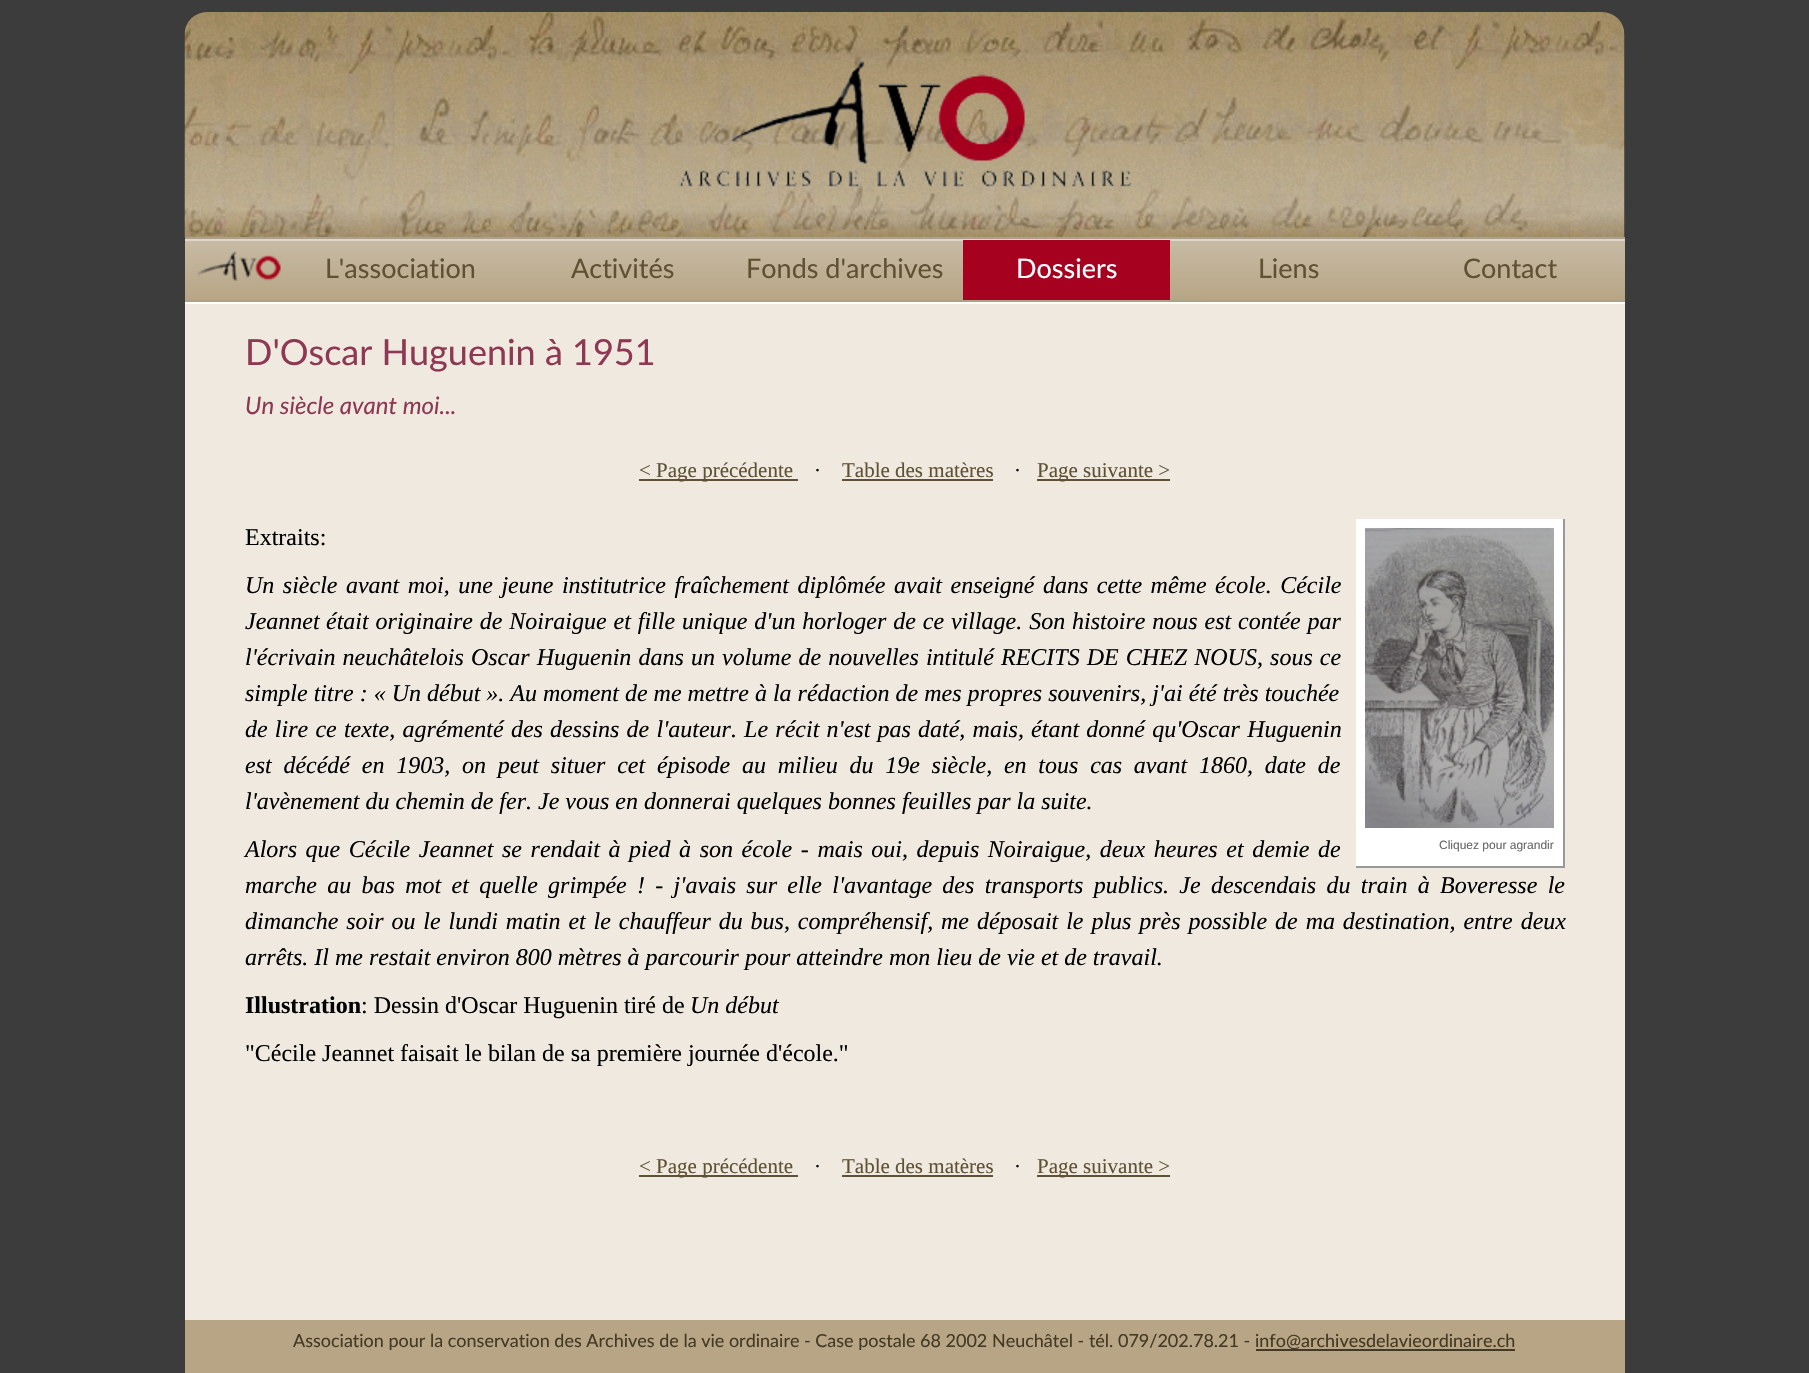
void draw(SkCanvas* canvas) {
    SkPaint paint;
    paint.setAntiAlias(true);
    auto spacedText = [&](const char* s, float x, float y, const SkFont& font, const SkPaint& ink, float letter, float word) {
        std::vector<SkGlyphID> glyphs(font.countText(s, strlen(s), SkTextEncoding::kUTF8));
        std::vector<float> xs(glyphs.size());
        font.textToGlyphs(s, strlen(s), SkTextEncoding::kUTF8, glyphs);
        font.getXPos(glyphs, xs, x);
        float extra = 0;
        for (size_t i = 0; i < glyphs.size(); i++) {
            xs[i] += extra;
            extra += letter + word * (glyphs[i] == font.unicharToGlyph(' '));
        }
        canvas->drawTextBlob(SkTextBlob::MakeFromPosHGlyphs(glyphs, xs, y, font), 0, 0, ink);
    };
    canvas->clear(0xFF3C3C3C);
    canvas->drawImageRect(SkImages::DeferredFromEncodedData(SkData::MakeFromFileName("img1.png")), SkRect::MakeXYWH(184, 12, 1441, 225), SkSamplingOptions());
    paint.setColor(0xFFAEA18A);
    canvas->drawRect(SkRect::MakeXYWH(185, 237, 1440, 2), paint);
    {
        const SkColor colors[] = {0xFFC7BBA5, 0xFFB7A585};
        const float stops[] = {0, 1};
        const SkPoint ends[] = {{905, 240}, {905, 300}};
        paint.setShader(SkGradientShader::MakeLinear(ends, colors, stops, 2, SkTileMode::kClamp));
        paint.setAlpha(255);
    }
    canvas->drawRect(SkRect::MakeXYWH(185, 241, 1440, 59), paint);
    paint.setShader(nullptr);
    paint.setColor(0xFFDFD7CC);
    canvas->drawRect(SkRect::MakeXYWH(185, 239, 1440, 2), paint);
    paint.setColor(0xFFAEA18A);
    canvas->drawRect(SkRect::MakeXYWH(185, 300, 1440, 2), paint);
    canvas->drawImageRect(SkImages::DeferredFromEncodedData(SkData::MakeFromFileName("img2.png")), SkRect::MakeXYWH(197, 251, 84, 30), SkSamplingOptions());
    SkFont font1(fontMgr->matchFamilyStyle("Lato", SkFontStyle::Normal()), 27);
    font1.setSubpixel(true);
    paint.setColor(0xFF5F5133);
    canvas->drawString("L'association", 325, 278, font1, paint);
    canvas->drawString("Activités", 571, 278, font1, paint);
    canvas->drawString("Fonds d'archives", 746, 278, font1, paint);
    paint.setColor(0xFFA6011F);
    canvas->drawRect(SkRect::MakeXYWH(963, 240, 207, 60), paint);
    paint.setColor(0xFFFFFFFF);
    canvas->drawString("Dossiers", 1016, 278, font1, paint);
    paint.setColor(0xFF5F5133);
    canvas->drawString("Liens", 1258, 278, font1, paint);
    canvas->drawString("Contact", 1463, 278, font1, paint);
    paint.setColor(0xFFEFE9E0);
    canvas->drawRect(SkRect::MakeXYWH(185, 304, 1440, 1016), paint);
    paint.setColor(0xFFFFFFFF);
    canvas->drawRect(SkRect::MakeXYWH(185, 302, 1440, 2), paint);
    SkFont font2(fontMgr->matchFamilyStyle("Lato", SkFontStyle::Normal()), 36);
    font2.setSubpixel(true);
    paint.setColor(0xFF8E3854);
    canvas->drawString("D'Oscar Huguenin à 1951", 245, 365, font2, paint);
    SkFont font3(fontMgr->matchFamilyStyle("Lato", SkFontStyle::Italic()), 24);
    font3.setSubpixel(true);
    canvas->drawString("Un siècle avant moi...", 245, 414, font3, paint);
    paint.setColor(0xFF5F5133);
    canvas->drawRect(SkRect::MakeXYWH(639, 479, 159, 2), paint);
    SkFont font4(fontMgr->matchFamilyStyle("Liberation Serif", SkFontStyle::Normal()), 21);
    font4.setSubpixel(true);
    canvas->drawString("< Page précédente", 639, 477, font4, paint);
    paint.setColor(0xFF000000);
    canvas->drawString("·", 814, 477, font4, paint);
    paint.setColor(0xFF5F5133);
    canvas->drawString("Table des matères", 842, 477, font4, paint);
    canvas->drawRect(SkRect::MakeXYWH(842, 479, 151, 2), paint);
    paint.setColor(0xFF000000);
    canvas->drawString("·", 1014, 477, font4, paint);
    paint.setColor(0xFF5F5133);
    canvas->drawRect(SkRect::MakeXYWH(1037, 479, 133, 2), paint);
    canvas->drawString("Page suivante >", 1037, 477, font4, paint);
    SkFont font5(fontMgr->matchFamilyStyle("Liberation Serif", SkFontStyle::Normal()), 24);
    font5.setSubpixel(true);
    paint.setColor(0xFF000000);
    canvas->drawString("Extraits:", 245, 545, font5, paint);
    SkFont font6(fontMgr->matchFamilyStyle("Liberation Serif", SkFontStyle::Italic()), 24);
    font6.setSubpixel(true);
    spacedText("Un siècle avant moi, une jeune institutrice fraîchement diplômée avait enseigné dans cette même école. Cécile", 245, 593, font6, paint, 0, 2.5f);
    canvas->drawString("Jeannet", 245, 629, font6, paint);
    spacedText("était originaire de Noiraigue et fille unique d'un horloger de ce village. Son histoire nous est contée par", 326, 629, font6, paint, 0, 0.9f);
    spacedText("l'écrivain neuchâtelois Oscar Huguenin dans un volume de nouvelles intitulé RECITS DE CHEZ NOUS, sous ce", 245, 665, font6, paint, 0, 1.1f);
    canvas->drawString("simple titre : « Un début ». Au moment de me mettre à la rédaction de mes propres souvenirs, j'ai été très touchée", 245, 701, font6, paint);
    spacedText("de lire ce texte, agrémenté des dessins de l'auteur. Le récit n'est pas daté, mais, étant donné qu'Oscar Huguenin", 245, 737, font6, paint, 0, 1.2f);
    spacedText("est décédé en 1903, on peut situer cet épisode au milieu du 19e siècle, en tous cas avant 1860, date de", 245, 773, font6, paint, 0, 5.75f);
    canvas->drawString("l'avènement du chemin de fer. Je vous en donnerai quelques bonnes feuilles par la suite.", 245, 809, font6, paint);
    spacedText("Alors que Cécile Jeannet se rendait à pied à son école - mais oui, depuis Noiraigue, deux heures et demie de", 245, 857, font6, paint, 0, 2.6f);
    spacedText("marche au bas mot et quelle grimpée ! - j'avais sur elle l'avantage des transports publics. Je descendais du train à Boveresse le", 245, 893, font6, paint, 0, 4.3f);
    spacedText("dimanche soir ou le lundi matin et le chauffeur du bus, compréhensif, me déposait le plus près possible de ma destination, entre deux", 245, 929, font6, paint, 0, 1.9f);
    canvas->drawString("arrêts. Il me restait environ 800 mètres à parcourir pour atteindre mon lieu de vie et de travail.", 245, 965, font6, paint);
    paint.setColor(0xFFFFFFFF);
    canvas->drawRect(SkRect::MakeXYWH(1356, 519, 207, 347), paint);
    paint.setColor(0xFF999999);
    canvas->drawRect(SkRect::MakeXYWH(1563, 519, 2, 348), paint);
    canvas->drawRect(SkRect::MakeXYWH(1356, 866, 209, 2), paint);
    canvas->drawImageRect(SkImages::DeferredFromEncodedData(SkData::MakeFromFileName("img3.png")), SkRect::MakeXYWH(1365, 528, 189, 300), SkSamplingOptions());
    SkFont font7(fontMgr->matchFamilyStyle("Liberation Sans", SkFontStyle::Normal()), 12);
    font7.setSubpixel(true);
    paint.setColor(0xFF666666);
    canvas->drawString("Cliquez pour agrandir", 1439, 849, font7, paint);
    SkFont font8(fontMgr->matchFamilyStyle("Liberation Serif", SkFontStyle::Bold()), 24);
    font8.setSubpixel(true);
    paint.setColor(0xFF000000);
    canvas->drawString("Illustration", 245, 1013, font8, paint);
    canvas->drawString(": Dessin d'Oscar Huguenin tiré de", 361, 1013, font5, paint);
    canvas->drawString("Un début", 690, 1013, font6, paint);
    canvas->drawString("\"Cécile Jeannet faisait le bilan de sa première journée d'école.\"", 245, 1061, font5, paint);
    paint.setColor(0xFF5F5133);
    canvas->drawRect(SkRect::MakeXYWH(639, 1175, 159, 2), paint);
    canvas->drawString("< Page précédente", 639, 1173, font4, paint);
    paint.setColor(0xFF000000);
    canvas->drawString("·", 814, 1173, font4, paint);
    paint.setColor(0xFF5F5133);
    canvas->drawString("Table des matères", 842, 1173, font4, paint);
    canvas->drawRect(SkRect::MakeXYWH(842, 1175, 151, 2), paint);
    paint.setColor(0xFF000000);
    canvas->drawString("·", 1014, 1173, font4, paint);
    paint.setColor(0xFF5F5133);
    canvas->drawRect(SkRect::MakeXYWH(1037, 1175, 133, 2), paint);
    canvas->drawString("Page suivante >", 1037, 1173, font4, paint);
    paint.setColor(0xFFB7A585);
    canvas->drawRect(SkRect::MakeXYWH(185, 1320, 1440, 53), paint);
    SkFont font9(fontMgr->matchFamilyStyle("Lato", SkFontStyle::Normal()), 18);
    font9.setSubpixel(true);
    paint.setColor(0xFF433924);
    canvas->drawString("Association pour la conservation des Archives de la vie ordinaire - Case postale 68 2002 Neuchâtel - tél. 079/202.78.21 -", 293, 1347, font9, paint);
    canvas->drawRect(SkRect::MakeXYWH(1256, 1349, 259, 2), paint);
    canvas->drawString("info@archivesdelavieordinaire.ch", 1255, 1347, font9, paint);
}
